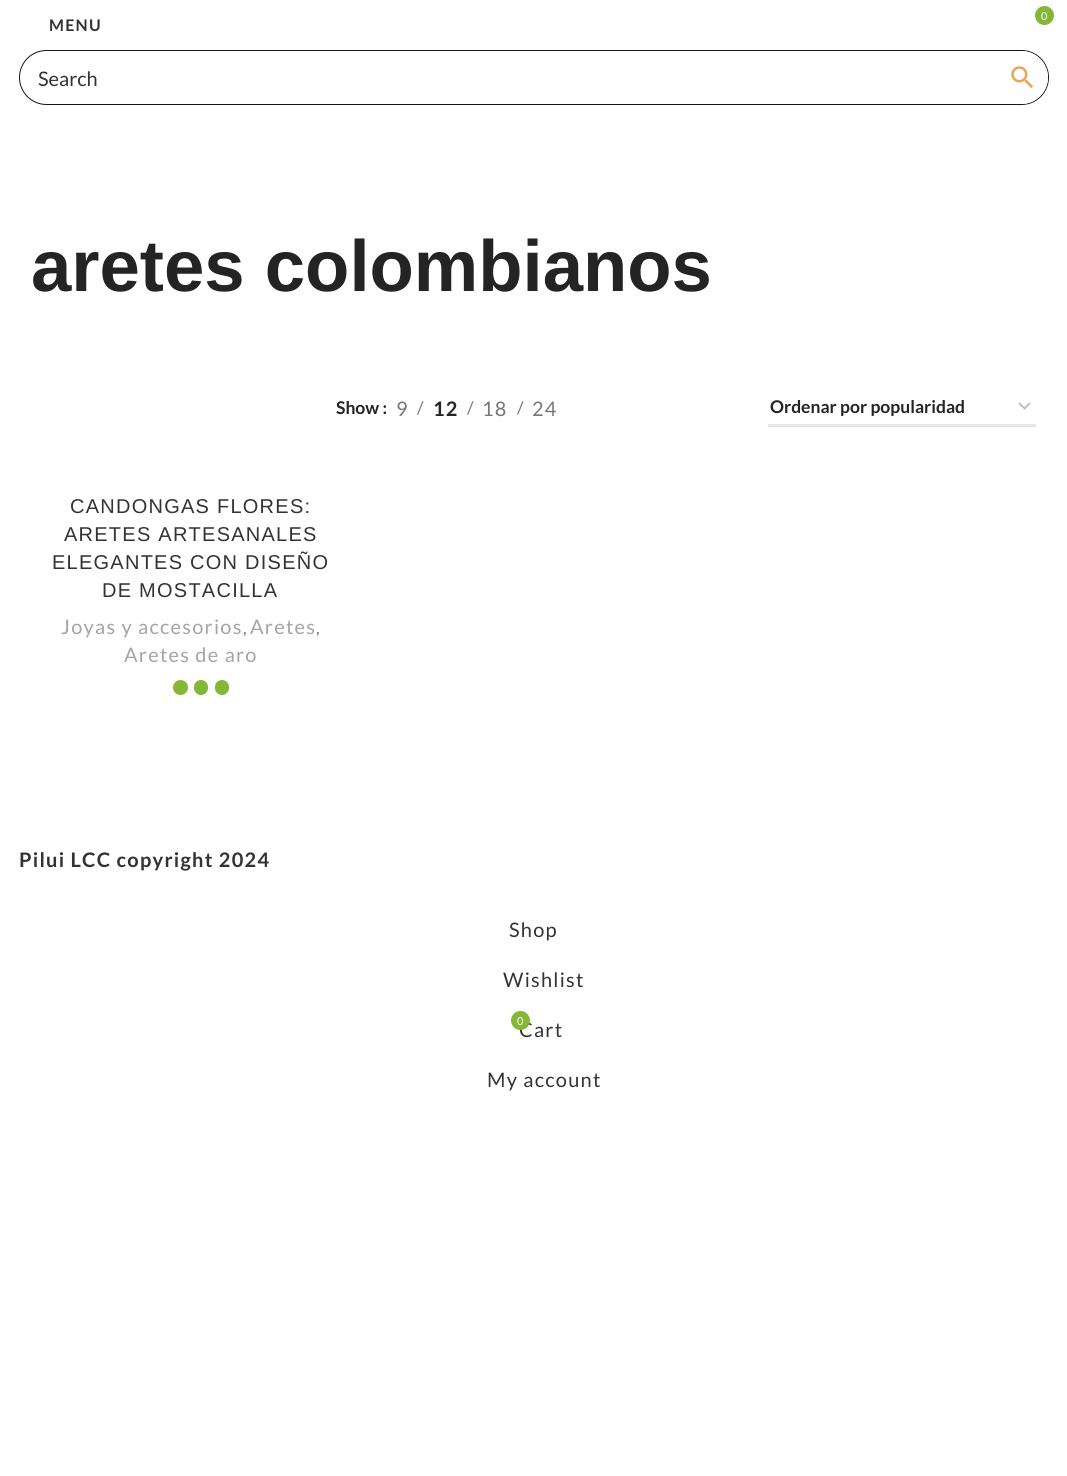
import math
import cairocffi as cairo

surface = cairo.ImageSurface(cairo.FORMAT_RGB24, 1067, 1476)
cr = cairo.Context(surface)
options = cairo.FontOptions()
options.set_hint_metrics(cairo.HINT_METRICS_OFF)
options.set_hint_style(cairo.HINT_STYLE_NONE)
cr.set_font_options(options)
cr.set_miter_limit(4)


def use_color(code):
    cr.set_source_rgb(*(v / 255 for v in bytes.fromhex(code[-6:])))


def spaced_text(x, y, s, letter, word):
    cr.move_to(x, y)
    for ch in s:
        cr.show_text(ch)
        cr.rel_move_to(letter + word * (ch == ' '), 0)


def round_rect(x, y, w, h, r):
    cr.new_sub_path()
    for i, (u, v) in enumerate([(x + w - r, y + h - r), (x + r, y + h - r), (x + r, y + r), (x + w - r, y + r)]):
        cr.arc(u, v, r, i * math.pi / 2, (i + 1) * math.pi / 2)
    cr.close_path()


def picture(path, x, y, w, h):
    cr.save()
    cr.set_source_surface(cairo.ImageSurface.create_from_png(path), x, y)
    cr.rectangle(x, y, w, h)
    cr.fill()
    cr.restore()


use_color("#ffffff")
cr.paint()
use_color("#83b735")
cr.arc(1044.5, 15.5, 9.5, 0, 2 * math.pi)
cr.fill()
cr.select_font_face("Lato")
cr.set_font_size(11)
use_color("#ffffff")
cr.move_to(1041, 20)
cr.show_text("0")
cr.select_font_face("Lato", cairo.FONT_SLANT_NORMAL, cairo.FONT_WEIGHT_BOLD)
cr.set_font_size(16)
use_color("#333333")
spaced_text(49, 31, "MENU", 1.25, 0)
round_rect(19.5, 50.5, 1029, 54, 27)
use_color("#161515")
cr.set_line_width(1)
cr.stroke()
cr.select_font_face("Lato")
cr.set_font_size(20)
use_color("#333333")
cr.move_to(38, 86)
cr.show_text("Search")
use_color("#ffffff")
cr.new_path()
cr.move_to(995, 51)
cr.line_to(1021.5, 51)
cr.curve_to(1036, 51, 1048, 63, 1048, 77.5)
cr.curve_to(1048, 92, 1036, 104, 1021.5, 104)
cr.line_to(995, 104)
cr.close_path()
cr.fill()
picture("img1.png", 1011, 66, 22, 22)
cr.select_font_face("Liberation Sans", cairo.FONT_SLANT_NORMAL, cairo.FONT_WEIGHT_BOLD)
cr.set_font_size(72.5)
use_color("#242424")
cr.move_to(31, 291)
cr.show_text("aretes colombianos")
cr.select_font_face("Lato", cairo.FONT_SLANT_NORMAL, cairo.FONT_WEIGHT_BOLD)
cr.set_font_size(17.5)
cr.move_to(336, 414)
cr.show_text("Show :")
cr.select_font_face("Lato")
cr.set_font_size(20)
use_color("#777777")
spaced_text(396, 416, "9", 1.25, 0)
cr.set_font_size(17.5)
cr.move_to(417, 414)
cr.show_text("/")
cr.select_font_face("Lato", cairo.FONT_SLANT_NORMAL, cairo.FONT_WEIGHT_BOLD)
cr.set_font_size(20)
use_color("#242424")
spaced_text(433, 416, "12", 1.25, 0)
cr.select_font_face("Lato")
cr.set_font_size(17.5)
use_color("#777777")
cr.move_to(467, 414)
cr.show_text("/")
cr.set_font_size(20)
spaced_text(482, 416, "18", 1.25, 0)
cr.set_font_size(17.5)
cr.move_to(517, 414)
cr.show_text("/")
cr.set_font_size(20)
spaced_text(532, 416, "24", 1.25, 0)
cr.new_path()
cr.move_to(1019, 403)
cr.line_to(1024.5, 408.5)
cr.line_to(1030, 403)
use_color("#bbbbbb")
cr.set_line_width(1.8)
cr.stroke()
use_color("#e6e6e6")
cr.rectangle(768, 424, 268, 3)
cr.fill()
cr.select_font_face("Lato", cairo.FONT_SLANT_NORMAL, cairo.FONT_WEIGHT_BOLD)
cr.set_font_size(17.5)
use_color("#242424")
cr.move_to(770, 413)
cr.show_text("Ordenar por popularidad")
cr.select_font_face("Liberation Sans")
cr.set_font_size(20)
use_color("#333333")
spaced_text(70, 513, "CANDONGAS FLORES:", 1.25, 0)
spaced_text(64, 541, "ARETES ARTESANALES", 1.25, 0)
spaced_text(52, 569, "ELEGANTES CON DISEÑO", 1.25, 0)
spaced_text(102, 597, "DE MOSTACILLA", 1.25, 0)
cr.select_font_face("Lato")
use_color("#a5a5a5")
spaced_text(61, 634, "Joyas y accesorios", 1.25, 0)
cr.set_font_size(17)
use_color("#777777")
cr.move_to(243, 634)
cr.show_text(",")
cr.set_font_size(20)
use_color("#a5a5a5")
spaced_text(250, 634, "Aretes", 1.25, 0)
cr.set_font_size(17)
use_color("#777777")
cr.move_to(316, 634)
cr.show_text(",")
cr.set_font_size(20)
use_color("#a5a5a5")
spaced_text(124, 662, "Aretes de aro", 1.25, 0)
use_color("#83b735")
round_rect(194, 680, 14, 15, 7)
cr.fill()
cr.arc(180.5, 687.5, 7.5, 0, 2 * math.pi)
cr.fill()
round_rect(215, 680, 14, 15, 7)
cr.fill()
cr.select_font_face("Lato", cairo.FONT_SLANT_NORMAL, cairo.FONT_WEIGHT_BOLD)
use_color("#333333")
spaced_text(19, 867, "Pilui LCC copyright 2024", 1.25, 0)
cr.select_font_face("Lato")
spaced_text(509, 937, "Shop", 1.25, 0)
spaced_text(503, 987, "Wishlist", 1.25, 0)
spaced_text(519, 1037, "Cart", 1.25, 0)
use_color("#83b735")
cr.new_path()
cr.arc(520.5, 1020.5, 9.5, 0, 2 * math.pi)
cr.fill()
cr.set_font_size(11)
use_color("#ffffff")
cr.move_to(517, 1025)
cr.show_text("0")
cr.set_font_size(20)
use_color("#333333")
spaced_text(487, 1087, "My account", 1.25, 0)
surface.write_to_png("result.png")
